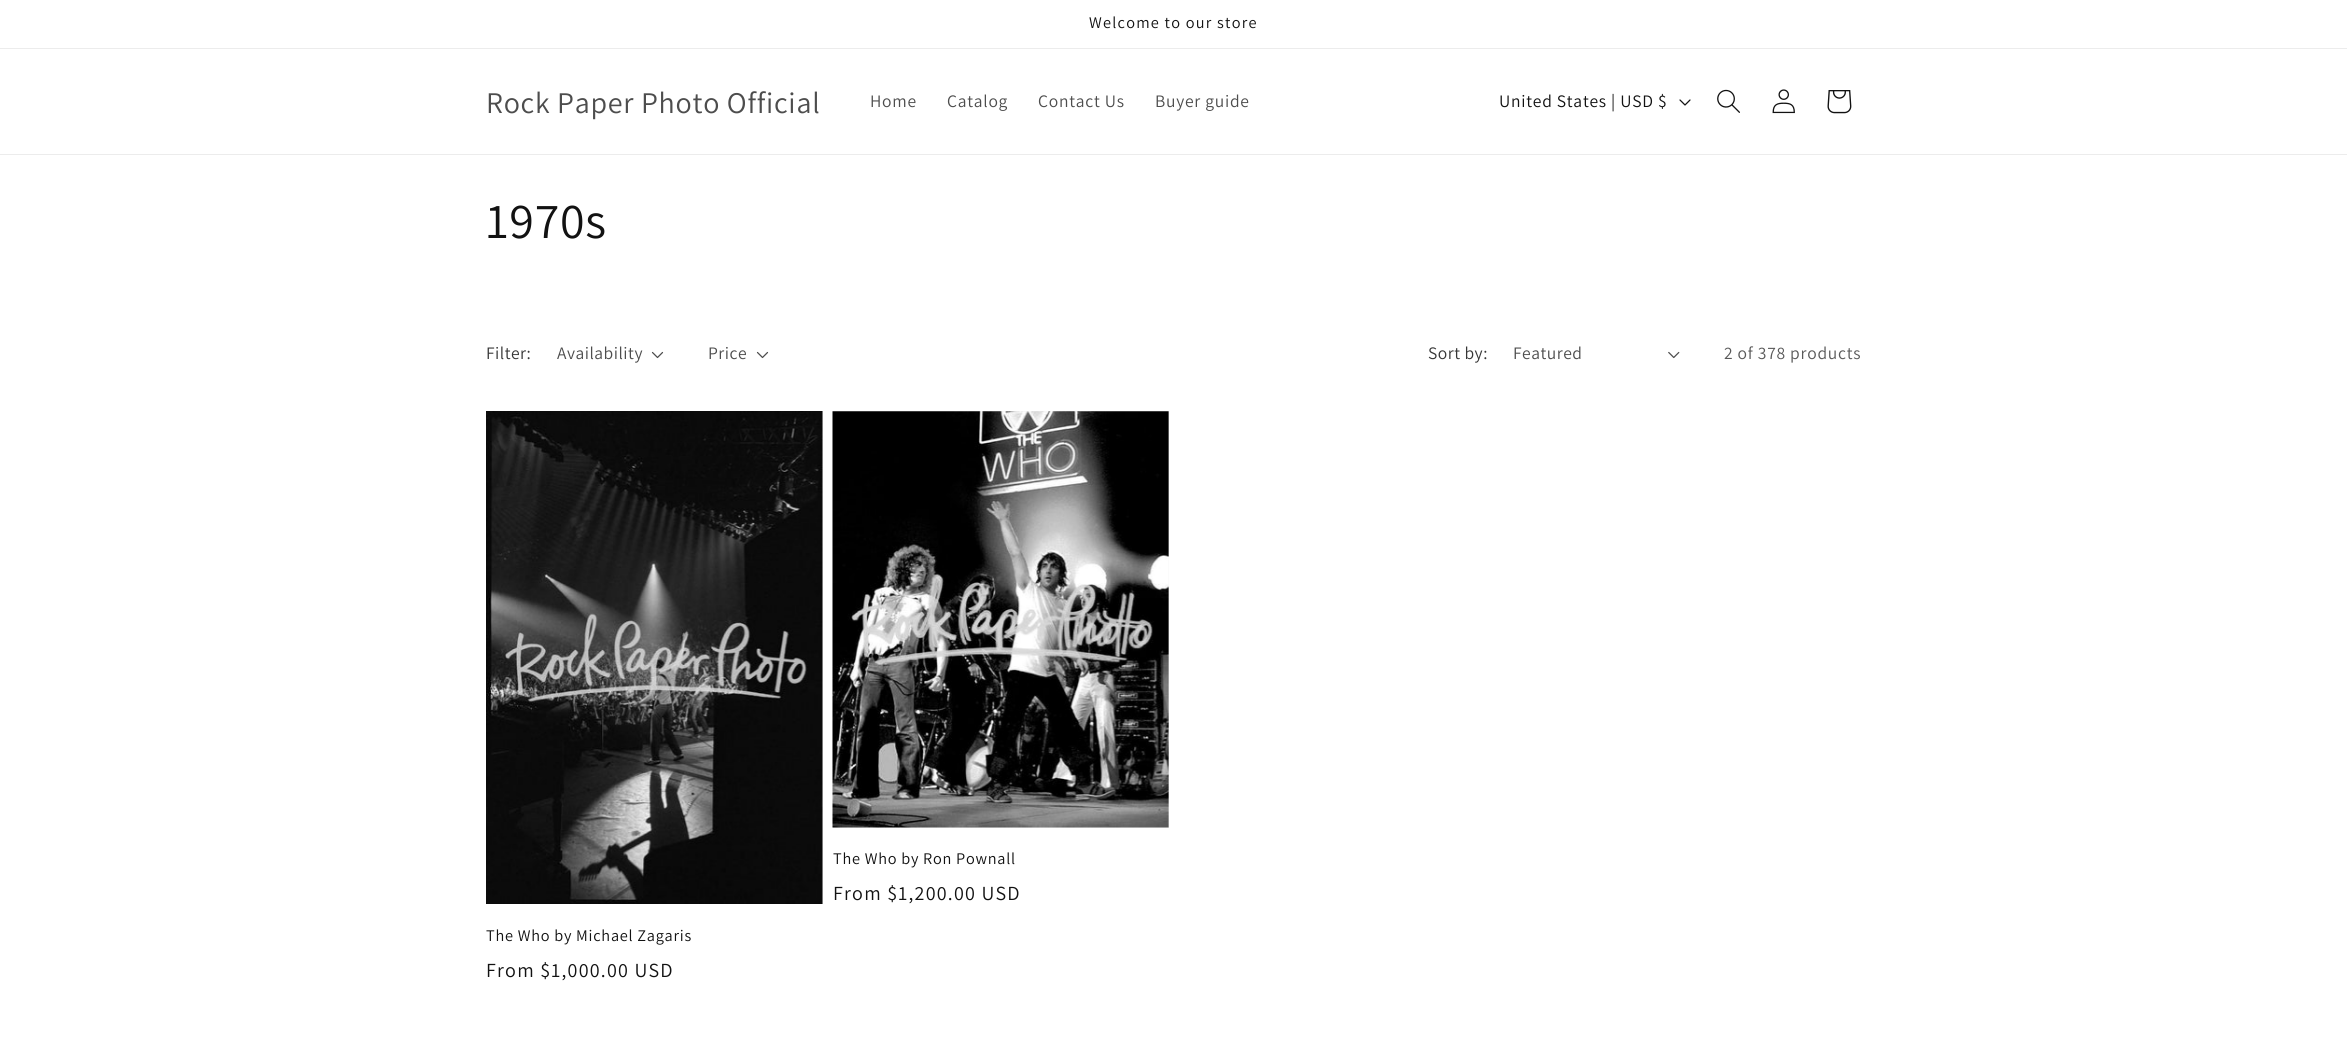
import math
import cairocffi as cairo

surface = cairo.ImageSurface(cairo.FORMAT_RGB24, 2347, 1039)
cr = cairo.Context(surface)
options = cairo.FontOptions()
options.set_hint_metrics(cairo.HINT_METRICS_OFF)
options.set_hint_style(cairo.HINT_STYLE_NONE)
cr.set_font_options(options)
cr.set_miter_limit(4)


def use_color(code):
    cr.set_source_rgb(*(v / 255 for v in bytes.fromhex(code[-6:])))


def spaced_text(x, y, s, letter, word):
    cr.move_to(x, y)
    for ch in s:
        cr.show_text(ch)
        cr.rel_move_to(letter + word * (ch == ' '), 0)


def picture(path, x, y, w, h):
    cr.save()
    cr.set_source_surface(cairo.ImageSurface.create_from_png(path), x, y)
    cr.rectangle(x, y, w, h)
    cr.fill()
    cr.restore()


use_color("#ffffff")
cr.paint()
use_color("#ececec")
cr.rectangle(0, 48, 2347, 1)
cr.fill()
cr.select_font_face("Assistant")
cr.set_font_size(16.25)
use_color("#121212")
spaced_text(1089, 28, "Welcome to our store", 1.25, 0)
use_color("#ececec")
cr.rectangle(0, 154, 2347, 1)
cr.fill()
cr.set_font_size(30)
use_color("#4d4d4d")
spaced_text(486, 113, "Rock Paper Photo Official", 0.75, 0)
cr.set_font_size(17.5)
spaced_text(870, 107, "Home", 0.75, 0)
spaced_text(947, 107, "Catalog", 0.75, 0)
spaced_text(1038, 107, "Contact Us", 0.75, 0)
spaced_text(1155, 107, "Buyer guide", 0.75, 0)
use_color("#121212")
spaced_text(1499, 107, "United States | USD $", 0.75, 0)
picture("img1.png", 1679, 99, 12, 7)
picture("img2.png", 1717, 89, 23, 24)
picture("img3.png", 1772, 89, 23, 25)
picture("img4.png", 1827, 90, 25, 24)
cr.set_font_size(50)
spaced_text(486, 238, "1970s", 0.75, 0)
cr.set_font_size(17.5)
use_color("#363636")
spaced_text(486, 359, "Filter:", 0.5, 0)
use_color("#4d4d4d")
spaced_text(557, 359, "Availability", 0.5, 0)
picture("img5.png", 651, 351, 13, 8)
spaced_text(708, 359, "Price", 0.5, 0)
picture("img5.png", 756, 351, 13, 8)
use_color("#363636")
spaced_text(1428, 359, "Sort by:", 0.5, 0)
use_color("#4d4d4d")
spaced_text(1513, 359, "Featured", 0.5, 0)
picture("img6.png", 1668, 351, 12, 8)
use_color("#595959")
spaced_text(1724, 359, "2 of 378 products", 0.75, 0)
use_color("#f3f3f3")
cr.rectangle(833, 411, 336, 417)
cr.fill()
picture("img7.png", 832, 411, 337, 417)
cr.set_font_size(16.25)
use_color("#121212")
spaced_text(833, 864, "The Who by Ron Pownall", 0.75, 0)
cr.set_font_size(20)
spaced_text(833, 900, "From $1,200.00 USD", 1.25, 0)
use_color("#f3f3f3")
cr.rectangle(822, 411, 1, 493)
cr.fill()
picture("img8.png", 486, 411, 337, 493)
cr.set_font_size(16.25)
use_color("#121212")
spaced_text(486, 941, "The Who by Michael Zagaris", 0.75, 0)
cr.set_font_size(20)
spaced_text(486, 977, "From $1,000.00 USD", 1.25, 0)
surface.write_to_png("result.png")
